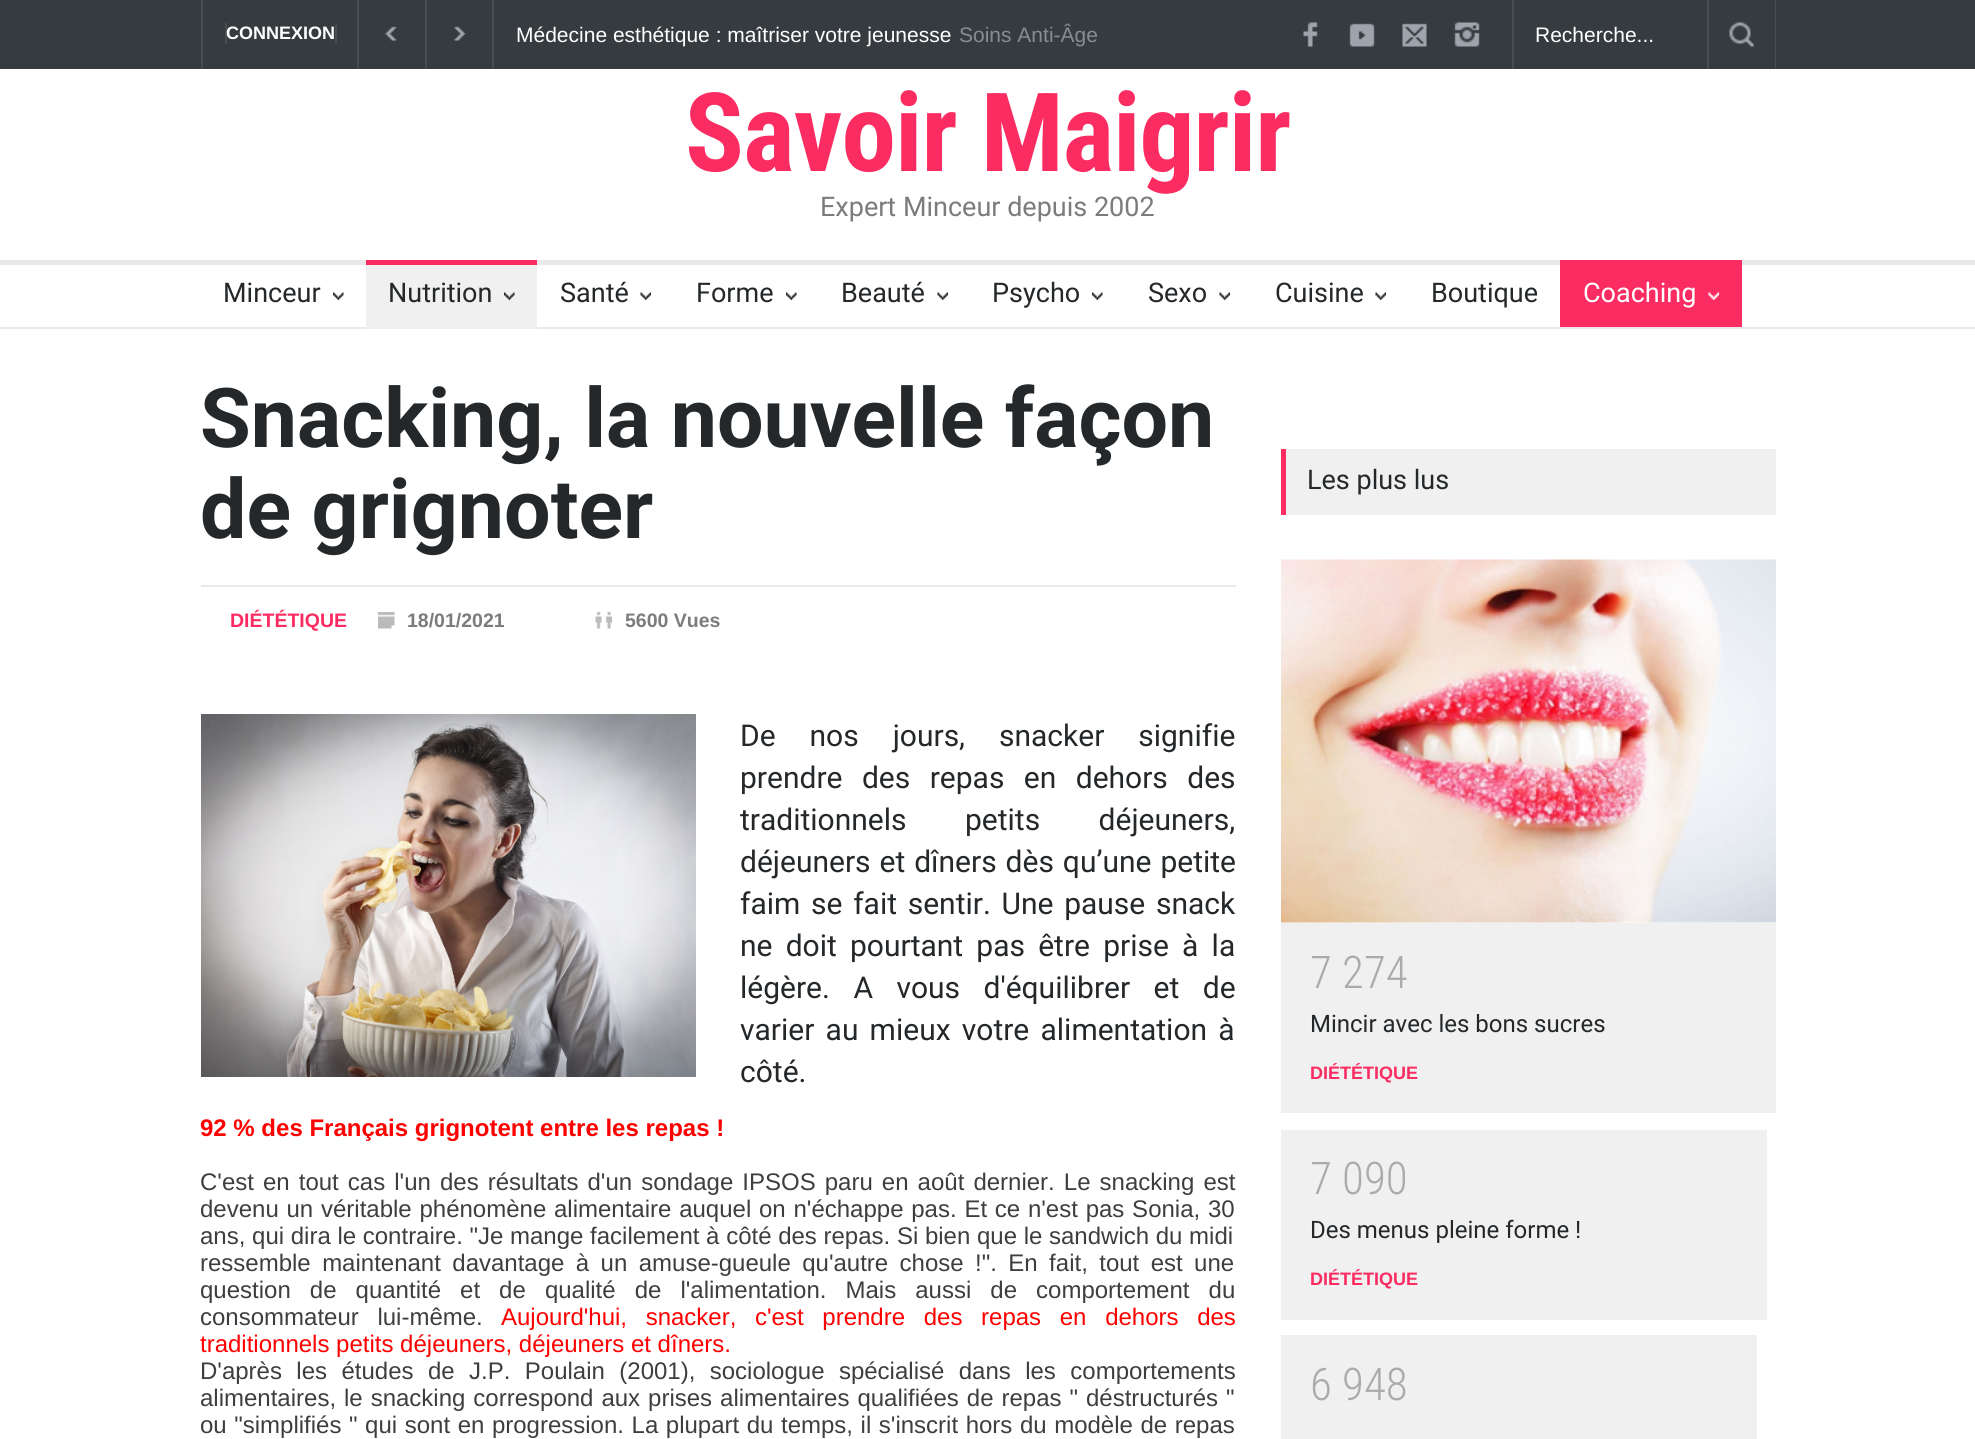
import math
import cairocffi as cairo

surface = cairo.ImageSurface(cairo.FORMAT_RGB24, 1975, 1439)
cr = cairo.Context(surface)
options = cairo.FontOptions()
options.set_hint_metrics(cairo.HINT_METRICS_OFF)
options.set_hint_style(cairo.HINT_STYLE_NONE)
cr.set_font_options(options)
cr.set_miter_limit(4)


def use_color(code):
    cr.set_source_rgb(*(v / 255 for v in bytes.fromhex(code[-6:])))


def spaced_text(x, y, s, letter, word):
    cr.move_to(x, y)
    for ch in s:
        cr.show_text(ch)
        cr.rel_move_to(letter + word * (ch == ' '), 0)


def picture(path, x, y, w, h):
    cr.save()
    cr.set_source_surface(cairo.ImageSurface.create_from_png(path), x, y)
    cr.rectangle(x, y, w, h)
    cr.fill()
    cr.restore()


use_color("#ffffff")
cr.paint()
use_color("#363b40")
cr.rectangle(0, 0, 1975, 69)
cr.fill()
use_color("#464d53")
cr.rectangle(357, 0, 2, 69)
cr.fill()
cr.rectangle(201, 0, 2, 69)
cr.fill()
cr.rectangle(225, 23, 2, 21)
cr.fill()
cr.select_font_face("Liberation Sans", cairo.FONT_SLANT_NORMAL, cairo.FONT_WEIGHT_BOLD)
cr.set_font_size(18)
use_color("#ffffff")
cr.move_to(226, 39)
cr.show_text("CONNEXION")
use_color("#464d53")
cr.rectangle(335, 23, 2, 21)
cr.fill()
cr.rectangle(425, 0, 2, 69)
cr.fill()
picture("img1.png", 385, 26, 12, 15)
cr.rectangle(492, 0, 2, 69)
cr.fill()
picture("img2.png", 454, 26, 12, 15)
cr.select_font_face("Liberation Sans")
cr.set_font_size(21)
use_color("#ffffff")
cr.move_to(516, 42)
cr.show_text("Médecine esthétique : maîtriser votre jeunesse")
use_color("#858d94")
cr.move_to(959, 42)
cr.show_text("Soins Anti-Âge")
picture("img3.png", 1303, 22, 15, 25)
picture("img4.png", 1349, 23, 26, 24)
picture("img5.png", 1402, 23, 25, 24)
picture("img6.png", 1454, 22, 26, 25)
use_color("#464d53")
cr.rectangle(1775, 0, 1, 69)
cr.fill()
cr.rectangle(1512, 0, 2, 69)
cr.fill()
cr.rectangle(1707, 0, 2, 69)
cr.fill()
use_color("#ffffff")
cr.move_to(1535, 42)
cr.show_text("Recherche...")
picture("img7.png", 1729, 22, 25, 25)
cr.select_font_face("Roboto Condensed", cairo.FONT_SLANT_NORMAL, cairo.FONT_WEIGHT_BOLD)
cr.set_font_size(109.5)
use_color("#fb2c61")
spaced_text(685, 171, "Savoir Maigrir", -1.1, 0)
cr.select_font_face("Roboto")
cr.set_font_size(27)
use_color("#7c7c7c")
cr.move_to(820, 216)
cr.show_text("Expert Minceur depuis 2002")
use_color("#e9e9e9")
cr.rectangle(0, 260, 1975, 5)
cr.fill()
cr.rectangle(0, 327, 1975, 2)
cr.fill()
picture("img8.png", 333, 292, 11, 8)
use_color("#25282a")
cr.move_to(223, 302)
cr.show_text("Minceur")
use_color("#f0f0f0")
cr.rectangle(366, 265, 171, 64)
cr.fill()
use_color("#fb2c61")
cr.rectangle(366, 260, 171, 5)
cr.fill()
picture("img9.png", 504, 292, 11, 8)
use_color("#25282a")
cr.move_to(388, 302)
cr.show_text("Nutrition")
picture("img10.png", 640, 292, 11, 8)
cr.move_to(560, 302)
cr.show_text("Santé")
picture("img11.png", 786, 292, 11, 8)
cr.move_to(696, 302)
cr.show_text("Forme")
picture("img12.png", 937, 292, 11, 8)
cr.move_to(841, 302)
cr.show_text("Beauté")
picture("img8.png", 1092, 292, 11, 8)
cr.move_to(992, 302)
cr.show_text("Psycho")
picture("img12.png", 1219, 292, 11, 8)
cr.move_to(1148, 302)
cr.show_text("Sexo")
picture("img10.png", 1375, 292, 11, 8)
cr.move_to(1275, 302)
cr.show_text("Cuisine")
cr.move_to(1431, 302)
cr.show_text("Boutique")
use_color("#fb2c61")
cr.rectangle(1560, 260, 182, 67)
cr.fill()
picture("img13.png", 1708, 292, 11, 8)
use_color("#ffffff")
cr.move_to(1583, 302)
cr.show_text("Coaching")
cr.select_font_face("Roboto", cairo.FONT_SLANT_NORMAL, cairo.FONT_WEIGHT_BOLD)
cr.set_font_size(82.5)
use_color("#25282a")
cr.move_to(200, 447)
cr.show_text("Snacking, la nouvelle façon")
cr.move_to(200, 538)
cr.show_text("de grignoter")
use_color("#e9e9e9")
cr.rectangle(201, 585, 1035, 2)
cr.fill()
cr.select_font_face("Liberation Sans", cairo.FONT_SLANT_NORMAL, cairo.FONT_WEIGHT_BOLD)
cr.set_font_size(19.5)
use_color("#fb2c61")
cr.move_to(230, 627)
cr.show_text("DIÉTÉTIQUE")
picture("img14.png", 378, 612, 17, 17)
use_color("#7c7c7c")
cr.move_to(407, 627)
cr.show_text("18/01/2021")
picture("img15.png", 595, 612, 17, 17)
cr.move_to(625, 627)
cr.show_text("5600 Vues")
picture("img16.png", 201, 714, 495, 363)
cr.select_font_face("Roboto")
cr.set_font_size(30)
use_color("#25282a")
spaced_text(740, 746, "De nos jours, snacker signifie", 0, 26.5)
spaced_text(740, 788, "prendre des repas en dehors des", 0, 12)
spaced_text(740, 830, "traditionnels petits déjeuners,", 0, 51)
spaced_text(740, 872, "déjeuners et dîners dès qu’une petite", 0, 1.5)
spaced_text(740, 914, "faim se fait sentir. Une pause snack", 0, 3.25)
spaced_text(740, 956, "ne doit pourtant pas être prise à la", 0, 5.75)
spaced_text(740, 998, "légère. A vous d'équilibrer et de", 0, 16)
spaced_text(740, 1040, "varier au mieux votre alimentation à", 0, 3.75)
cr.move_to(740, 1082)
cr.show_text("côté.")
cr.select_font_face("Liberation Sans", cairo.FONT_SLANT_NORMAL, cairo.FONT_WEIGHT_BOLD)
cr.set_font_size(24)
use_color("#ff0000")
cr.move_to(200, 1136)
cr.show_text("92 % des Français grignotent entre les repas !")
cr.select_font_face("Liberation Sans")
use_color("#3e3e3e")
spaced_text(200, 1190, "C'est en tout cas l'un des résultats d'un sondage IPSOS paru en août dernier. Le snacking est", 0, 2.4)
spaced_text(200, 1217, "devenu un véritable phénomène alimentaire auquel on n'échappe pas. Et ce n'est pas Sonia, 30", 0, 1.1)
cr.move_to(200, 1244)
cr.show_text("ans, qui dira le contraire. \"Je mange facilement à côté des repas. Si bien que le sandwich du midi")
spaced_text(200, 1271, "ressemble maintenant davantage à un amuse-gueule qu'autre chose !\". En fait, tout est une", 0, 4.75)
spaced_text(200, 1298, "question de quantité et de qualité de l'alimentation. Mais aussi de comportement du", 0, 12.4)
spaced_text(200, 1325, "consommateur lui-même.", 0, 12)
use_color("#ff0000")
spaced_text(501, 1325, "Aujourd'hui, snacker, c'est prendre des repas en dehors des", 0, 12)
cr.move_to(200, 1352)
cr.show_text("traditionnels petits déjeuners, déjeuners et dîners.")
use_color("#3e3e3e")
spaced_text(200, 1379, "D'après les études de J.P. Poulain (2001), sociologue spécialisé dans les comportements", 0, 7.75)
spaced_text(200, 1406, "alimentaires, le snacking correspond aux prises alimentaires qualifiées de repas \" déstructurés \"", 0, 1.3)
spaced_text(200, 1433, "ou \"simplifiés \" qui sont en progression. La plupart du temps, il s'inscrit hors du modèle de repas", 0, 0.9)
use_color("#f0f0f0")
cr.rectangle(1286, 449, 490, 66)
cr.fill()
use_color("#fb2c61")
cr.rectangle(1281, 449, 5, 66)
cr.fill()
cr.select_font_face("Roboto")
cr.set_font_size(27)
use_color("#25282a")
cr.move_to(1307, 489)
cr.show_text("Les plus lus")
picture("img17.png", 1281, 559, 495, 364)
use_color("#f0f0f0")
cr.rectangle(1281, 923, 495, 190)
cr.fill()
cr.select_font_face("Roboto Condensed Light")
cr.set_font_size(45)
use_color("#ababab")
cr.move_to(1310, 988)
cr.show_text("7 274")
cr.select_font_face("Roboto")
cr.set_font_size(24)
use_color("#25282a")
cr.move_to(1310, 1032)
cr.show_text("Mincir avec les bons sucres")
cr.select_font_face("Liberation Sans", cairo.FONT_SLANT_NORMAL, cairo.FONT_WEIGHT_BOLD)
cr.set_font_size(18)
use_color("#fb2c61")
cr.move_to(1310, 1079)
cr.show_text("DIÉTÉTIQUE")
use_color("#f0f0f0")
cr.rectangle(1281, 1130, 486, 190)
cr.fill()
cr.select_font_face("Roboto Condensed Light")
cr.set_font_size(45)
use_color("#ababab")
cr.move_to(1310, 1194)
cr.show_text("7 090")
cr.select_font_face("Roboto")
cr.set_font_size(24)
use_color("#25282a")
cr.move_to(1310, 1238)
cr.show_text("Des menus pleine forme !")
cr.select_font_face("Liberation Sans", cairo.FONT_SLANT_NORMAL, cairo.FONT_WEIGHT_BOLD)
cr.set_font_size(18)
use_color("#fb2c61")
cr.move_to(1310, 1285)
cr.show_text("DIÉTÉTIQUE")
use_color("#f0f0f0")
cr.rectangle(1281, 1335, 476, 104)
cr.fill()
cr.select_font_face("Roboto Condensed Light")
cr.set_font_size(45)
use_color("#ababab")
cr.move_to(1310, 1400)
cr.show_text("6 948")
surface.write_to_png("result.png")
